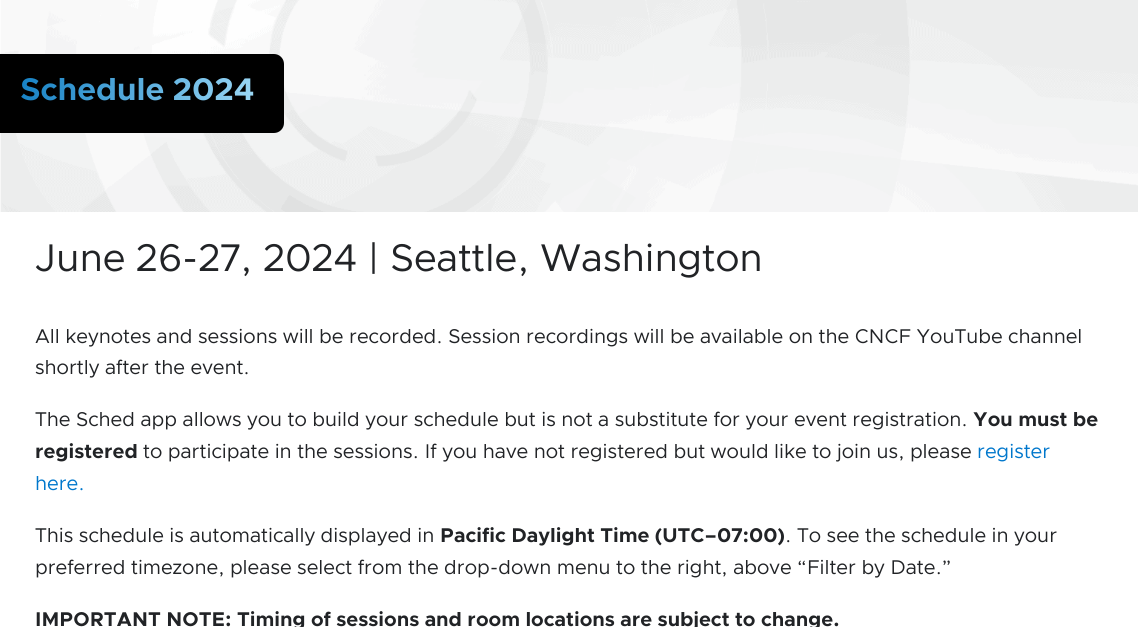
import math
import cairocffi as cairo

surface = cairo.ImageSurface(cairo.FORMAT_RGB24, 1138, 627)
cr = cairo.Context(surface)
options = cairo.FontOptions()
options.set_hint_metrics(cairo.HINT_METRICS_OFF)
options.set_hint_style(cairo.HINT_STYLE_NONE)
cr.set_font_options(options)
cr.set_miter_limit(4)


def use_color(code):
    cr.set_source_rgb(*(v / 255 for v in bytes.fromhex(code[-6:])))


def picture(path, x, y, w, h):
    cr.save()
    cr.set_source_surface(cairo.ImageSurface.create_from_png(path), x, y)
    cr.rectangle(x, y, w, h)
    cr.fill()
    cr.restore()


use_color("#ffffff")
cr.paint()
picture("img1.png", 0, 0, 1138, 212)
use_color("#000000")
cr.new_path()
cr.move_to(0, 54)
cr.line_to(274, 54)
cr.curve_to(279.5, 54, 284, 58.5, 284, 64)
cr.line_to(284, 123)
cr.curve_to(284, 128.5, 279.5, 133, 274, 133)
cr.line_to(0, 133)
cr.close_path()
cr.fill()
cr.select_font_face("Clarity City", cairo.FONT_SLANT_NORMAL, cairo.FONT_WEIGHT_BOLD)
cr.set_font_size(31.5)
gradient = cairo.LinearGradient(20, 72, 253, 110)
gradient.add_color_stop_rgba(0, 0.086, 0.506, 0.769, 1)
gradient.add_color_stop_rgba(1, 0.604, 0.843, 0.961, 1)
cr.set_source(gradient)
cr.move_to(20, 100)
cr.show_text("Schedule 2024")
cr.select_font_face("Clarity City")
cr.set_font_size(38.75)
use_color("#212326")
cr.move_to(35, 271)
cr.show_text("June 26-27, 2024 | Seattle, Washington")
cr.set_font_size(20)
cr.move_to(35, 343)
cr.show_text("All keynotes and sessions will be recorded. Session recordings will be available on the CNCF YouTube channel")
cr.move_to(35, 374)
cr.show_text("shortly after the event.")
cr.move_to(35, 426)
cr.show_text("The Sched app allows you to build your schedule but is not a substitute for your event registration.")
cr.select_font_face("Clarity City", cairo.FONT_SLANT_NORMAL, cairo.FONT_WEIGHT_BOLD)
cr.move_to(973, 426)
cr.show_text("You must be")
cr.move_to(35, 458)
cr.show_text("registered")
cr.select_font_face("Clarity City")
cr.move_to(143, 458)
cr.show_text("to participate in the sessions. If you have not registered but would like to join us, please")
use_color("#0077cc")
cr.move_to(977, 458)
cr.show_text("register")
cr.move_to(35, 490)
cr.show_text("here.")
use_color("#212326")
cr.move_to(35, 542)
cr.show_text("This schedule is automatically displayed in")
cr.select_font_face("Clarity City", cairo.FONT_SLANT_NORMAL, cairo.FONT_WEIGHT_BOLD)
cr.move_to(440, 542)
cr.show_text("Pacific Daylight Time (UTC–07:00)")
cr.select_font_face("Clarity City")
cr.move_to(785, 542)
cr.show_text(". To see the schedule in your")
cr.move_to(35, 574)
cr.show_text("preferred timezone, please select from the drop-down menu to the right, above “Filter by Date.”")
cr.select_font_face("Clarity City", cairo.FONT_SLANT_NORMAL, cairo.FONT_WEIGHT_BOLD)
cr.move_to(35, 626)
cr.show_text("IMPORTANT NOTE: Timing of sessions and room locations are subject to change.")
surface.write_to_png("result.png")
